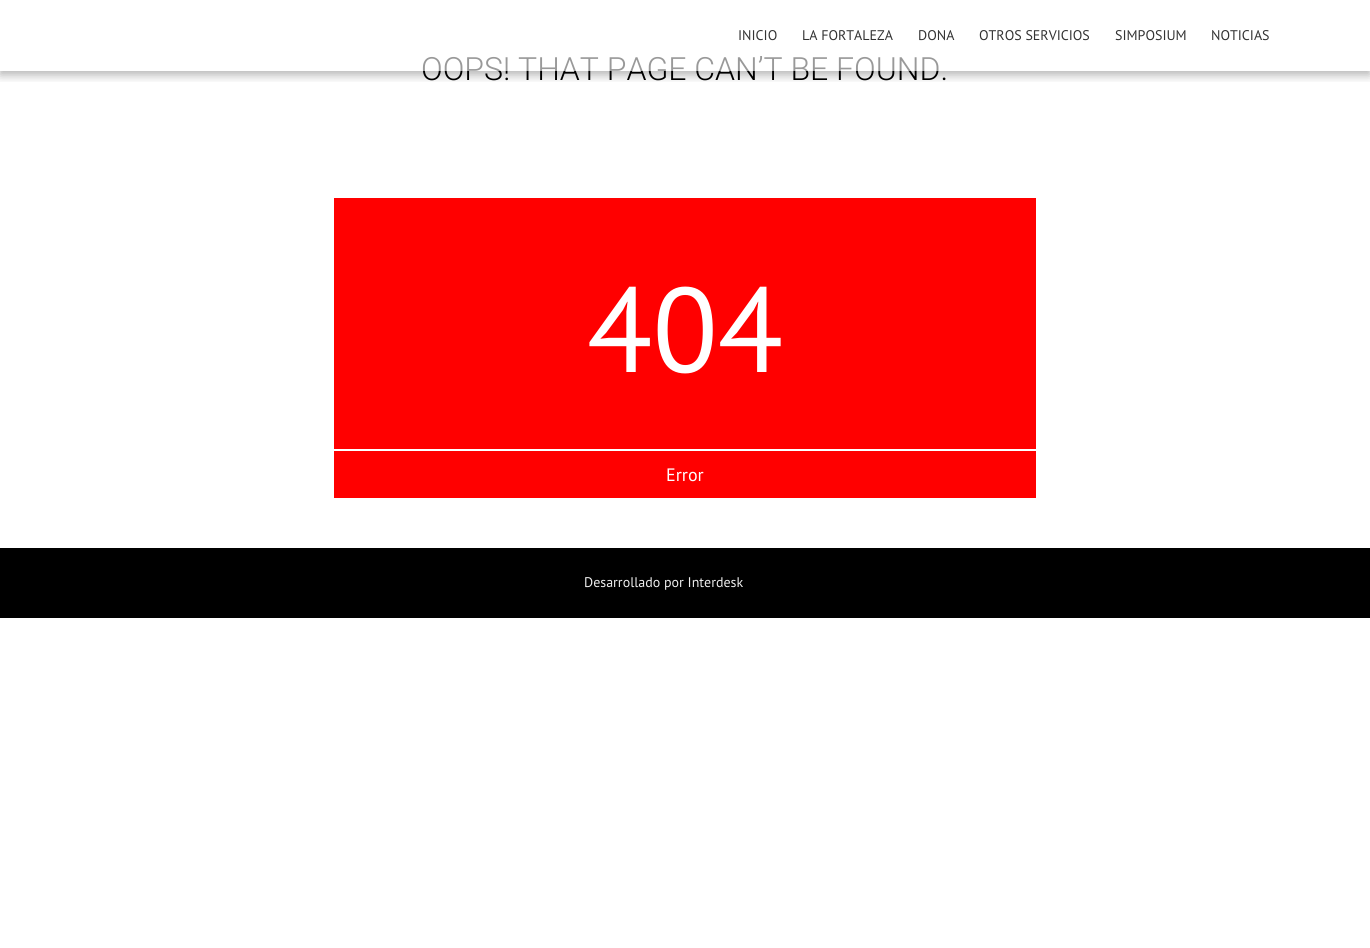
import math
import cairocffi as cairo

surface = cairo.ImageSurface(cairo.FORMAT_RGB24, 1370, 948)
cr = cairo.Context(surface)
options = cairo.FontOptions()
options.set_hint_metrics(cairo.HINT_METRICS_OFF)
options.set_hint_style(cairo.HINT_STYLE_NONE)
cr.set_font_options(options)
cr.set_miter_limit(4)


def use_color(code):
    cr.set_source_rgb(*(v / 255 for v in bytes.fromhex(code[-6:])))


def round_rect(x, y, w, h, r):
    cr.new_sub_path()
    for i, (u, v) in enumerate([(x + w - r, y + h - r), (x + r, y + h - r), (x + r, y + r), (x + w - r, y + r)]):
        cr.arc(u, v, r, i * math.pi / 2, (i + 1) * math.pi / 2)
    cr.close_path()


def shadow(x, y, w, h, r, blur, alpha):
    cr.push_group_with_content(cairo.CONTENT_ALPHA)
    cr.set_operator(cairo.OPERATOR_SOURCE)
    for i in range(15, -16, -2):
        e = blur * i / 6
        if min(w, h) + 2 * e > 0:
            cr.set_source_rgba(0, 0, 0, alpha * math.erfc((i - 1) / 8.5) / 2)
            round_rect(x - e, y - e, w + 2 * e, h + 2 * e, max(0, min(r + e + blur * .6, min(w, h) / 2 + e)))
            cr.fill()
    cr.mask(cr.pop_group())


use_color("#ffffff")
cr.paint()
cr.save()
cr.rectangle(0, 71, 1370, 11)
cr.clip()
use_color("#000000")
shadow(0, 4, 1370, 71, 0, 5, 0.3)
cr.restore()
cr.select_font_face("Roboto Light")
cr.set_font_size(32)
use_color("#000000")
cr.move_to(421, 80)
cr.show_text("OOPS! THAT PAGE CAN’T BE FOUND.")
cr.set_source_rgba(1, 1, 1, 0.6)
cr.rectangle(423, 56, 516, 15)
cr.fill()
cr.select_font_face("PT Sans")
cr.set_font_size(14)
use_color("#333333")
cr.move_to(738, 40)
cr.show_text("INICIO")
cr.move_to(802, 40)
cr.show_text("LA FORTALEZA")
cr.move_to(918, 40)
cr.show_text("DONA")
cr.move_to(979, 40)
cr.show_text("OTROS SERVICIOS")
cr.move_to(1115, 40)
cr.show_text("SIMPOSIUM")
cr.move_to(1211, 40)
cr.show_text("NOTICIAS")
use_color("#ff0000")
cr.rectangle(334, 198, 702, 300)
cr.fill()
cr.set_font_size(120)
use_color("#ffffff")
cr.move_to(587, 372)
cr.show_text("404")
cr.rectangle(334, 449, 702, 2)
cr.fill()
cr.set_font_size(18)
cr.move_to(666, 481)
cr.show_text("Error")
use_color("#000000")
cr.rectangle(0, 548, 1370, 70)
cr.fill()
cr.set_font_size(14)
use_color("#eeeeee")
cr.move_to(584, 587)
cr.show_text("Desarrollado por Interdesk")
surface.write_to_png("result.png")
